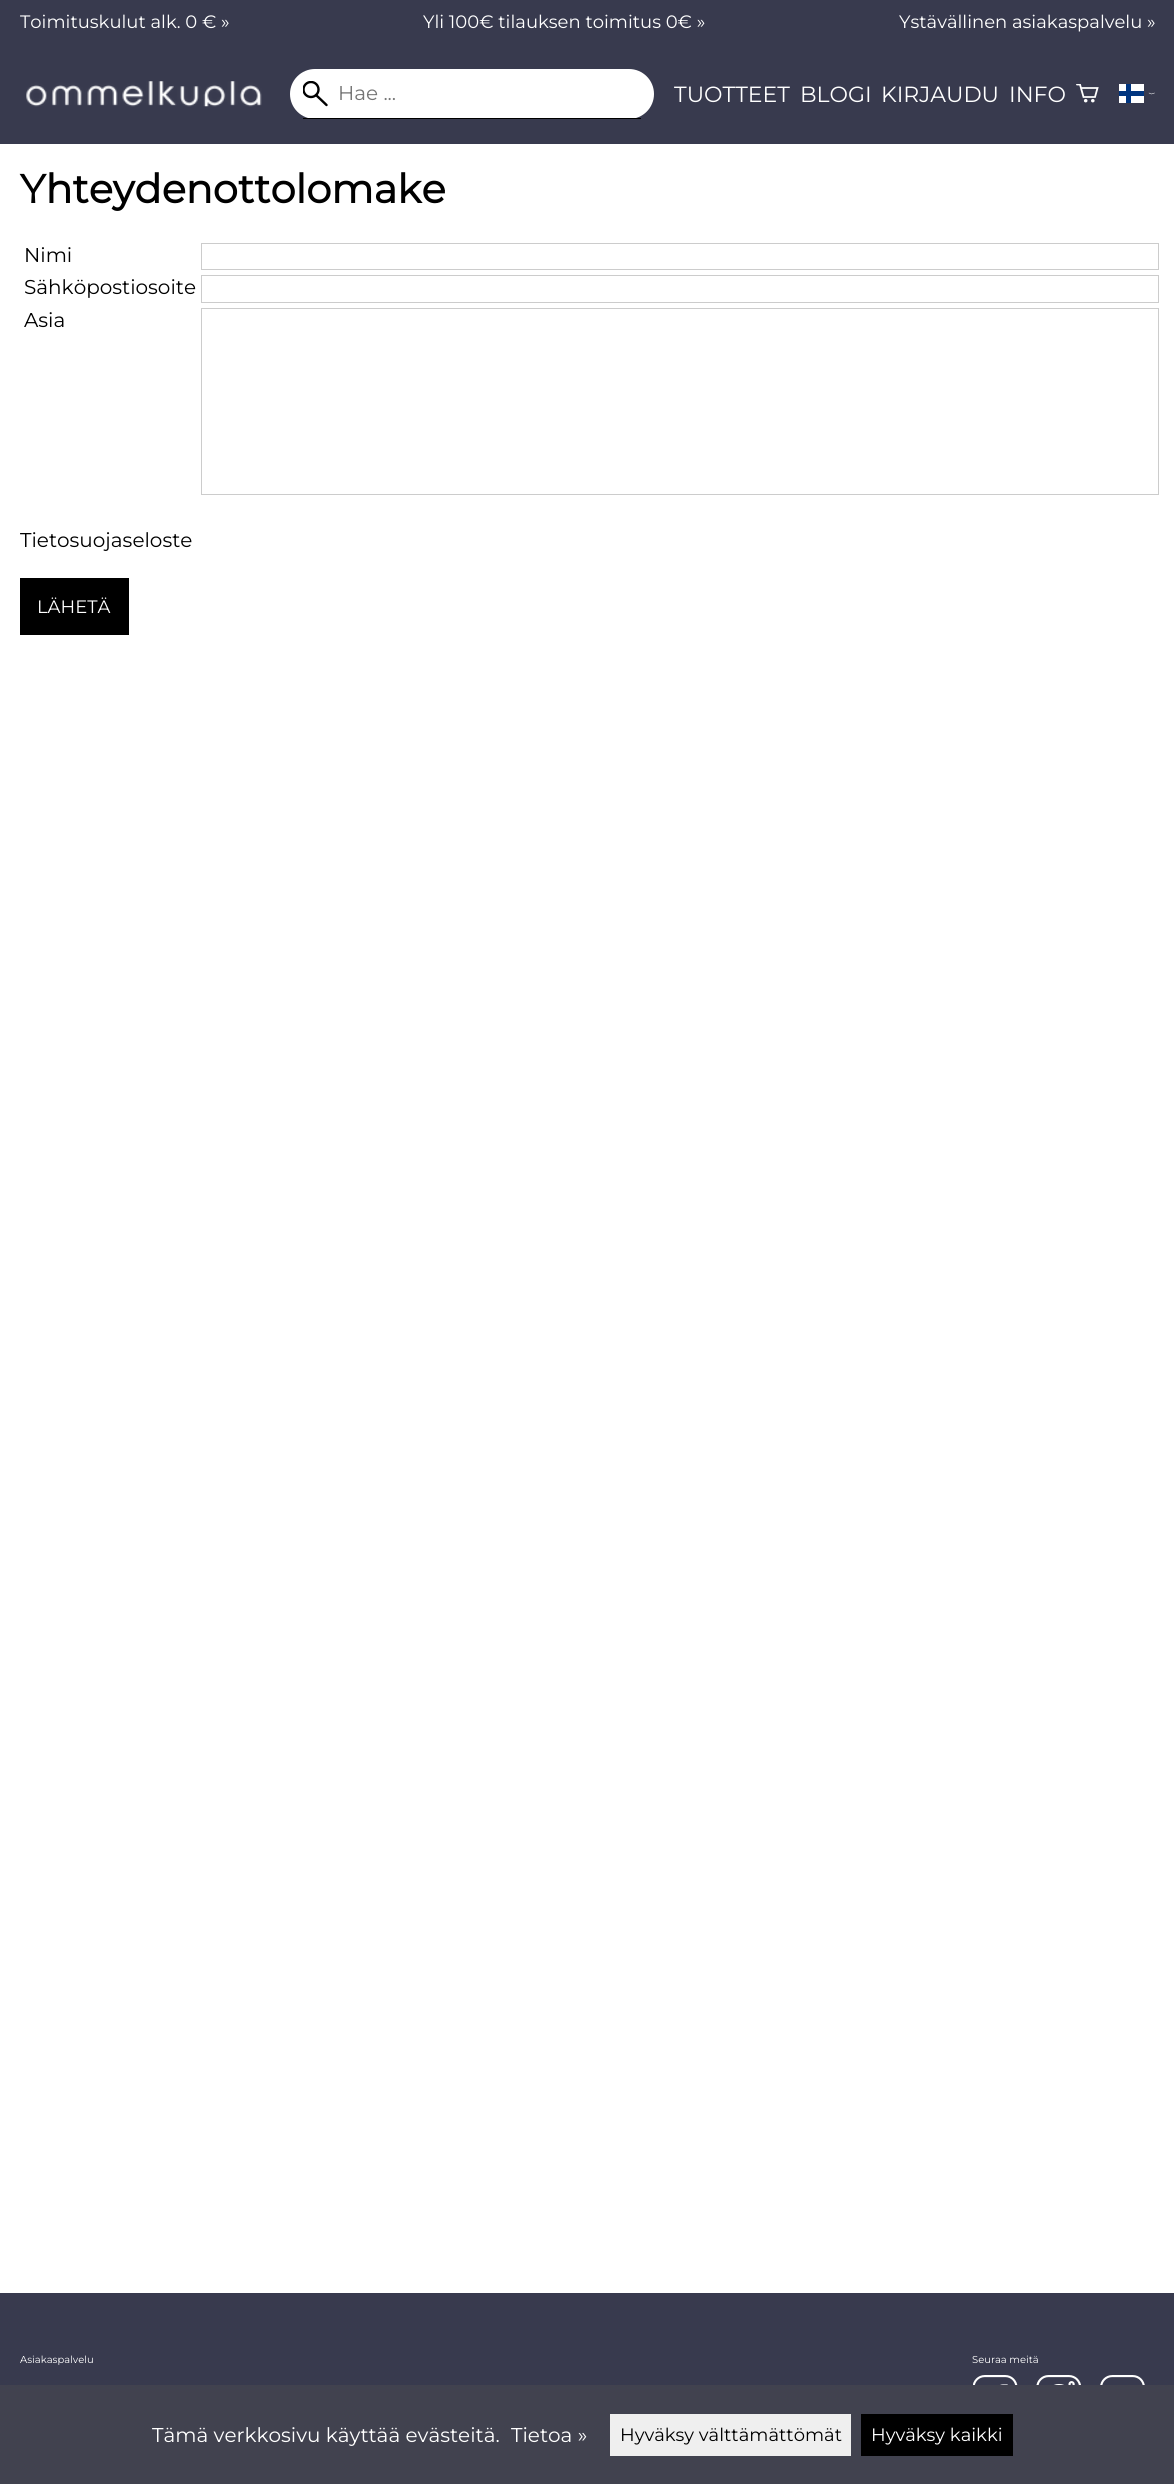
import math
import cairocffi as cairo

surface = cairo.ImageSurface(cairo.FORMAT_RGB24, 1174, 2484)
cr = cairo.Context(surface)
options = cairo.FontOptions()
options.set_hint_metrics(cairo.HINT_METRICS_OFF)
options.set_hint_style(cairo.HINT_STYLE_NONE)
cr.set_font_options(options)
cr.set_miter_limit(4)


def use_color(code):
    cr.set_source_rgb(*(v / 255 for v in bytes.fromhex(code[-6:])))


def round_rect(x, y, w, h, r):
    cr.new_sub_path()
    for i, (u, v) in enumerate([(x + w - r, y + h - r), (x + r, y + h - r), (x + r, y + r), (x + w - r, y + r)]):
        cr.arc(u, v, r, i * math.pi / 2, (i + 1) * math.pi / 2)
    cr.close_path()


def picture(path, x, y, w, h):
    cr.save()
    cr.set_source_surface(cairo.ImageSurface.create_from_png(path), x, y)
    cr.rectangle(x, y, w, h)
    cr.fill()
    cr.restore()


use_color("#ffffff")
cr.paint()
use_color("#383a4e")
cr.rectangle(0, 0, 1174, 144)
cr.fill()
cr.select_font_face("Montserrat Thin")
cr.set_font_size(18)
use_color("#ffffff")
cr.move_to(20, 28)
cr.show_text("Toimituskulut alk. 0 € »")
cr.move_to(423, 28)
cr.show_text("Yli 100€ tilauksen toimitus 0€ »")
cr.move_to(899, 28)
cr.show_text("Ystävällinen asiakaspalvelu »")
picture("img1.png", 26, 81, 236, 26)
round_rect(290, 69, 364, 50, 25)
cr.fill()
cr.new_path()
cr.move_to(326.5, 105)
cr.line_to(316, 95)
use_color("#000000")
cr.set_line_width(2.4)
cr.set_line_cap(cairo.LINE_CAP_ROUND)
cr.stroke()
cr.save()
cr.rectangle(303, 81, 25, 25)
cr.clip()
cr.arc(311, 89.5, 7.5, 0, 2 * math.pi)
cr.set_line_cap(cairo.LINE_CAP_BUTT)
cr.stroke()
cr.restore()
cr.rectangle(303, 118, 338, 1)
cr.fill()
cr.set_font_size(20)
use_color("#757575")
cr.move_to(338, 100)
cr.show_text("Hae ...")
cr.set_font_size(22)
use_color("#ffffff")
cr.move_to(674, 102)
cr.show_text("TUOTTEET")
cr.move_to(800, 102)
cr.show_text("BLOGI")
cr.move_to(881, 102)
cr.show_text("KIRJAUDU")
cr.move_to(1009, 102)
cr.show_text("INFO")
cr.save()
cr.rectangle(1076, 84, 23, 19)
cr.clip()
cr.new_path()
cr.move_to(1081, 88)
cr.line_to(1097.5, 88)
cr.line_to(1095, 97)
cr.line_to(1083.5, 97)
cr.line_to(1080, 84.5)
cr.line_to(1077, 84.5)
cr.set_line_width(1.8)
cr.stroke()
cr.restore()
cr.arc(1085.7, 100.7, 0.9, 0, 2 * math.pi)
cr.set_line_width(1.8)
cr.set_line_cap(cairo.LINE_CAP_BUTT)
cr.stroke()
cr.arc(1092.8, 100.7, 0.9, 0, 2 * math.pi)
cr.stroke()
cr.rectangle(1119, 84, 25, 19)
cr.fill()
use_color("#003580")
cr.rectangle(1119, 91, 25, 5)
cr.fill()
cr.rectangle(1126, 84, 5, 19)
cr.fill()
cr.new_path()
cr.move_to(1149, 93)
cr.line_to(1151.5, 94)
cr.line_to(1154.5, 93)
use_color("#ffffff")
cr.set_line_width(0.5)
cr.set_line_cap(cairo.LINE_CAP_ROUND)
cr.stroke()
cr.select_font_face("Montserrat", cairo.FONT_SLANT_NORMAL, cairo.FONT_WEIGHT_BOLD)
cr.set_font_size(40)
use_color("#000000")
cr.move_to(20, 203)
cr.show_text("Yhteydenottolomake")
cr.select_font_face("Montserrat Thin")
cr.set_font_size(20)
cr.move_to(24, 262)
cr.show_text("Nimi")
cr.rectangle(201.5, 243.5, 957, 26)
use_color("#cccccc")
cr.set_line_width(1)
cr.set_line_cap(cairo.LINE_CAP_BUTT)
cr.stroke()
use_color("#000000")
cr.move_to(24, 294)
cr.show_text("Sähköpostiosoite")
cr.rectangle(201.5, 275.5, 957, 27)
use_color("#cccccc")
cr.stroke()
use_color("#000000")
cr.move_to(24, 327)
cr.show_text("Asia")
cr.rectangle(201.5, 308.5, 957, 186)
use_color("#cccccc")
cr.stroke()
use_color("#000000")
cr.move_to(20, 547)
cr.show_text("Tietosuojaseloste")
cr.rectangle(20, 578, 109, 57)
cr.fill()
cr.set_font_size(18)
use_color("#ffffff")
cr.move_to(37, 613)
cr.show_text("LÄHETÄ")
use_color("#383a4e")
cr.rectangle(0, 2293, 1174, 92)
cr.fill()
cr.set_font_size(10)
use_color("#ffffff")
cr.move_to(20, 2363)
cr.show_text("Asiakaspalvelu")
cr.move_to(972, 2363)
cr.show_text("Seuraa meitä")
picture("img2.png", 973, 2375, 45, 10)
picture("img3.png", 1036, 2375, 45, 10)
picture("img4.png", 1100, 2375, 45, 10)
use_color("#41424f")
cr.rectangle(0, 2385, 1174, 99)
cr.fill()
cr.set_font_size(20)
use_color("#ffffff")
cr.move_to(152, 2442)
cr.show_text("Tämä verkkosivu käyttää evästeitä.")
cr.move_to(511, 2442)
cr.show_text("Tietoa »")
use_color("#efefef")
cr.rectangle(610, 2414, 241, 42)
cr.fill()
cr.set_font_size(18)
use_color("#000000")
cr.move_to(620, 2441)
cr.show_text("Hyväksy välttämättömät")
cr.rectangle(861, 2414, 152, 42)
cr.fill()
use_color("#ffffff")
cr.move_to(871, 2441)
cr.show_text("Hyväksy kaikki")
surface.write_to_png("result.png")
